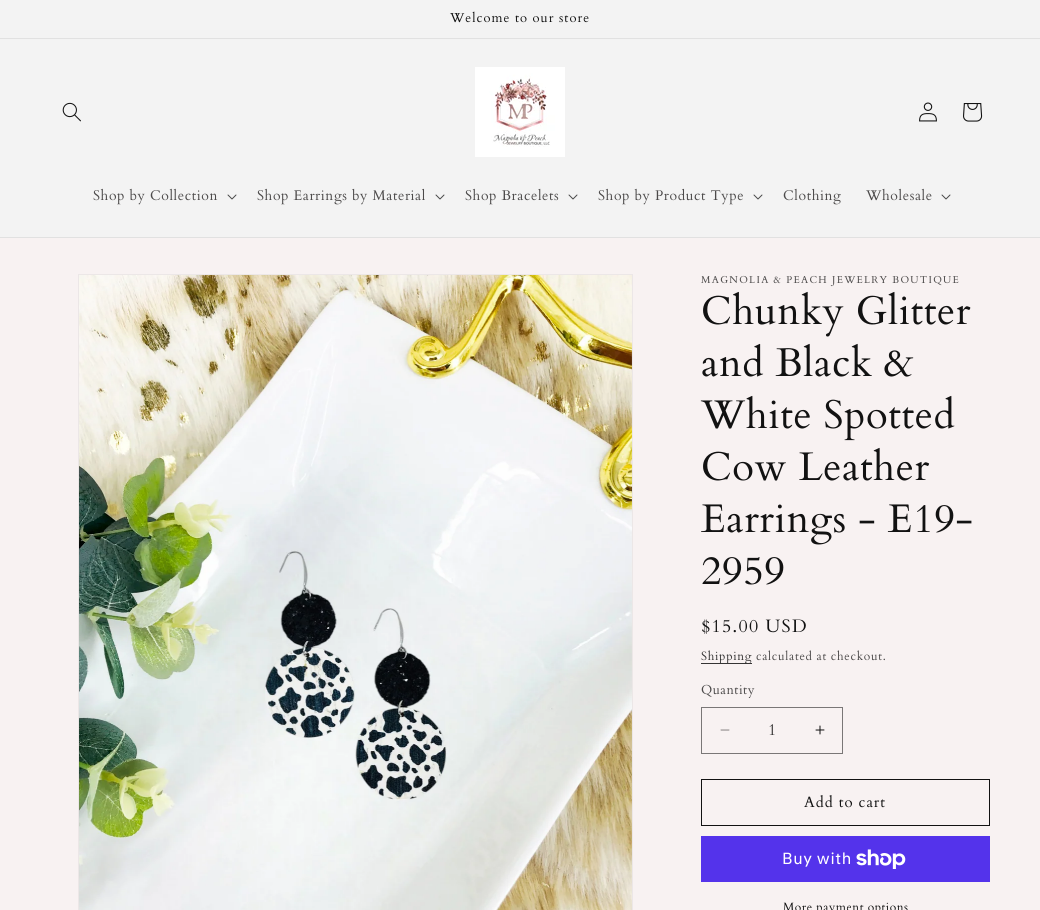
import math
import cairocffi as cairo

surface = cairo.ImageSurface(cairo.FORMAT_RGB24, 1040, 910)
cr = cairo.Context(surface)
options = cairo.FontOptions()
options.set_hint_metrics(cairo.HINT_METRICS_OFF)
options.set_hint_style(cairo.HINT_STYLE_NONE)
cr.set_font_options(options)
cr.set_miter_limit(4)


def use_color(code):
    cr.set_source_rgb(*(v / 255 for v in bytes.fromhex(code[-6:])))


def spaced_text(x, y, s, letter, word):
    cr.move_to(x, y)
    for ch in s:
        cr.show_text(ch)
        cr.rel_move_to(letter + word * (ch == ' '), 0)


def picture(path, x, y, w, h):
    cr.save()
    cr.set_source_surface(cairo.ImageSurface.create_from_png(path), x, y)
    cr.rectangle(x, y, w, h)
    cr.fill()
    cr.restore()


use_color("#f8f2f2")
cr.paint()
use_color("#f3f3f3")
cr.rectangle(0, 0, 1040, 38)
cr.fill()
use_color("#e1e1e1")
cr.rectangle(0, 38, 1040, 1)
cr.fill()
cr.select_font_face("Cardo")
cr.set_font_size(13)
use_color("#121212")
spaced_text(450, 22, "Welcome to our store", 1, 0)
use_color("#f3f3f3")
cr.rectangle(0, 39, 1040, 198)
cr.fill()
use_color("#e1e1e1")
cr.rectangle(0, 237, 1040, 1)
cr.fill()
picture("img1.png", 62, 102, 19, 20)
picture("img2.png", 475, 67, 90, 90)
picture("img3.png", 919, 102, 18, 20)
picture("img4.png", 963, 103, 20, 19)
cr.set_font_size(14)
use_color("#4c4a4a")
spaced_text(93, 200, "Shop by Collection", 0.6, 0)
picture("img5.png", 227, 194, 10, 6)
spaced_text(257, 200, "Shop Earrings by Material", 0.6, 0)
picture("img5.png", 435, 194, 10, 6)
spaced_text(465, 200, "Shop Bracelets", 0.6, 0)
picture("img5.png", 568, 194, 10, 6)
spaced_text(598, 200, "Shop by Product Type", 0.6, 0)
picture("img5.png", 753, 194, 10, 6)
spaced_text(783, 200, "Clothing", 0.6, 0)
spaced_text(866, 200, "Wholesale", 0.6, 0)
picture("img5.png", 941, 194, 10, 6)
cr.rectangle(78.5, 274.5, 554, 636)
use_color("#ece7e7")
cr.set_line_width(1)
cr.stroke()
picture("img6.png", 79, 275, 553, 635)
cr.set_font_size(10)
use_color("#4c4a4a")
spaced_text(701, 283, "MAGNOLIA & PEACH JEWELRY BOUTIQUE", 1.3, 0)
cr.set_font_size(40)
use_color("#121212")
spaced_text(701, 324, "Chunky Glitter", 0.6, 0)
spaced_text(701, 376, "and Black &", 0.6, 0)
spaced_text(701, 428, "White Spotted", 0.6, 0)
spaced_text(701, 480, "Cow Leather", 0.6, 0)
spaced_text(701, 532, "Earrings - E19-", 0.6, 0)
spaced_text(701, 584, "2959", 0.6, 0)
cr.set_font_size(18)
spaced_text(701, 632, "$15.00 USD", 1.3, 0)
use_color("#353434")
cr.rectangle(701, 663, 51, 1)
cr.fill()
cr.set_font_size(12)
use_color("#333232")
spaced_text(701, 660, "Shipping", 0.7, 0)
use_color("#4c4a4a")
spaced_text(756, 660, "calculated at checkout.", 0.7, 0)
cr.set_font_size(13)
spaced_text(701, 694, "Quantity", 0.5, 0)
picture("img7.png", 720, 729, 10, 2)
picture("img8.png", 815, 725, 10, 10)
cr.rectangle(701.5, 707.5, 141, 46)
use_color("#7a7777")
cr.stroke()
cr.set_font_size(16)
use_color("#333232")
cr.move_to(768, 735)
cr.show_text("1")
cr.rectangle(701.5, 779.5, 288, 46)
use_color("#121212")
cr.stroke()
cr.set_font_size(15)
spaced_text(804, 807, "Add to cart", 1, 0)
use_color("#5433eb")
cr.rectangle(701, 836, 289, 46)
cr.fill()
cr.select_font_face("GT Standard")
cr.set_font_size(16)
use_color("#ffffff")
spaced_text(782, 864, "Buy with", 0.6, 0)
picture("img9.png", 856, 849, 50, 20)
cr.select_font_face("Cardo")
cr.set_font_size(12)
use_color("#121212")
spaced_text(783, 911, "More payment options", 0.5, 0)
surface.write_to_png("result.png")
